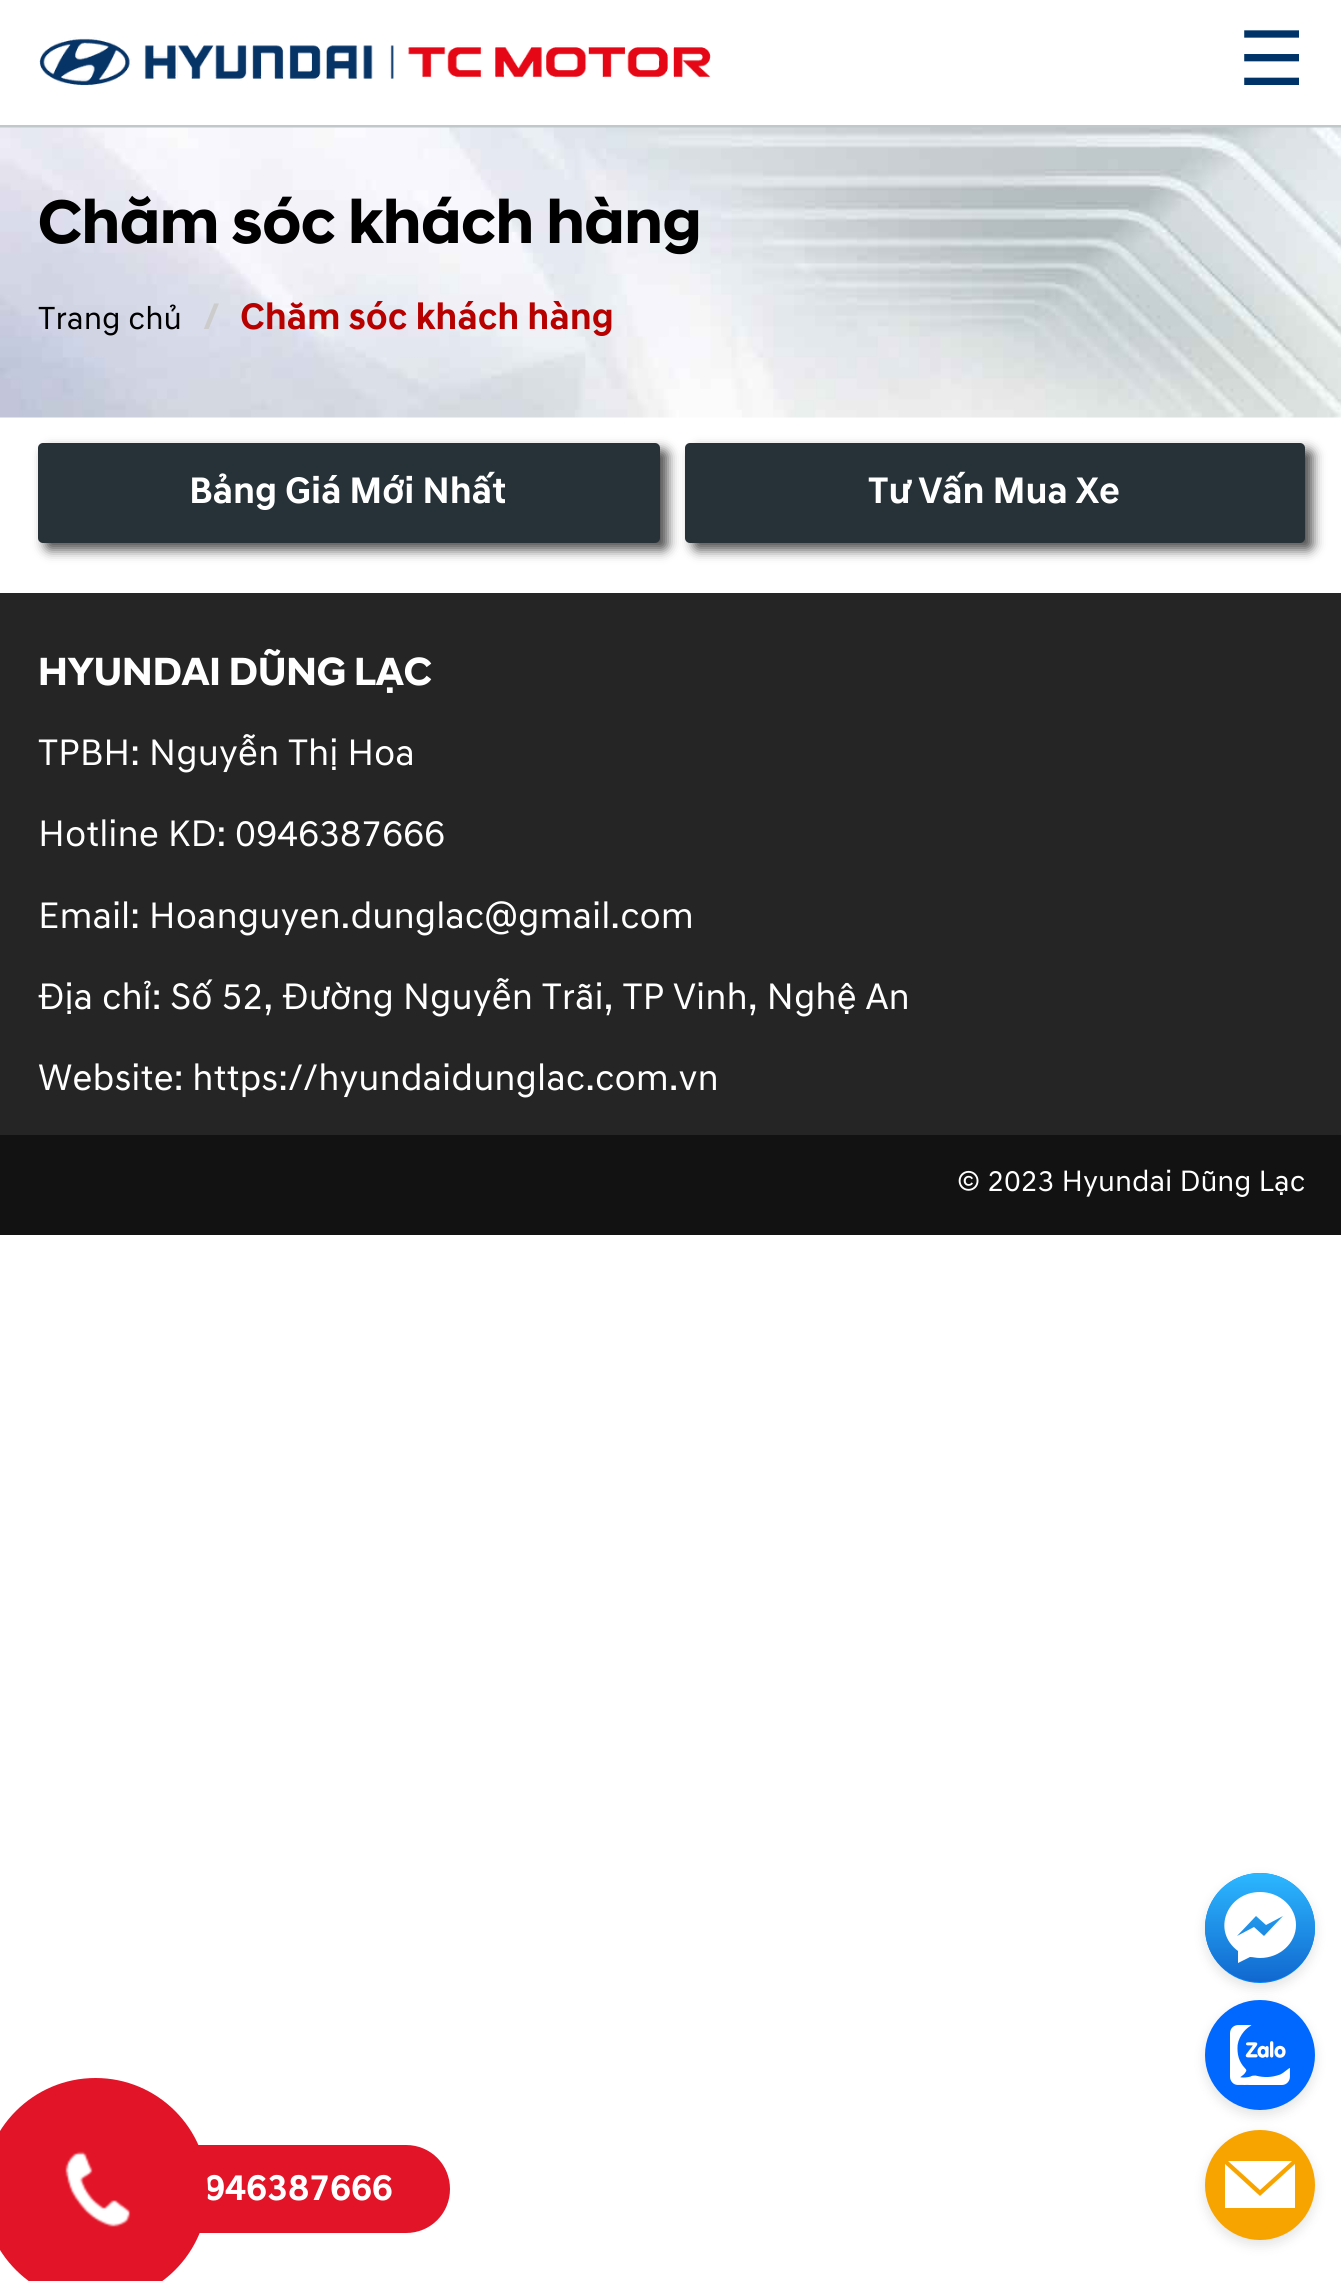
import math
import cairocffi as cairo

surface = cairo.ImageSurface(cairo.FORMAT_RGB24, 1341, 2281)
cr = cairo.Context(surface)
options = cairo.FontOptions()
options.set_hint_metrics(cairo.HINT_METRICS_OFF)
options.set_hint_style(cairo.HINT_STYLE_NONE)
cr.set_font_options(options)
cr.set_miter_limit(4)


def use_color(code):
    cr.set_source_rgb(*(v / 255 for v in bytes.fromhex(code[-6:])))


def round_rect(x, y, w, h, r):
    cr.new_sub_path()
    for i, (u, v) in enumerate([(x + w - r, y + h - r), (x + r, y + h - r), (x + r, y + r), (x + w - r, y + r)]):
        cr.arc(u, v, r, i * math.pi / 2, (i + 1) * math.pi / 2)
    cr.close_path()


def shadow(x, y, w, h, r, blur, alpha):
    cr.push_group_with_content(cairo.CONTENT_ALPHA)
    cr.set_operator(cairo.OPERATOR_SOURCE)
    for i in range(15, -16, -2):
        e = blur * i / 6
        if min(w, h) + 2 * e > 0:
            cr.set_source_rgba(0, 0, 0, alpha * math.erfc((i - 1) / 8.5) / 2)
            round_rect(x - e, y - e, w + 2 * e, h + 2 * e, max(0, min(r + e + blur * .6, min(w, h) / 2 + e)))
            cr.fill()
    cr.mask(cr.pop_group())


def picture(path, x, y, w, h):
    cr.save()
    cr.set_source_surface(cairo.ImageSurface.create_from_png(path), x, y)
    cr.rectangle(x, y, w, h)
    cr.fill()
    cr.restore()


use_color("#ffffff")
cr.paint()
use_color("#c0c8c9")
cr.rectangle(0, 125, 1341, 3)
cr.fill()
picture("img1.png", 39, 37, 672, 49)
cr.select_font_face("DejaVu Sans")
cr.set_font_size(75)
use_color("#003468")
cr.move_to(1238, 85)
cr.show_text("☰")
picture("img2.png", 0, 127, 1341, 291)
cr.select_font_face("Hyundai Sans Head", cairo.FONT_SLANT_NORMAL, cairo.FONT_WEIGHT_BOLD)
cr.set_font_size(62.5)
use_color("#000000")
cr.move_to(38, 243)
cr.show_text("Chăm sóc khách hàng")
cr.select_font_face("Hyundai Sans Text")
cr.set_font_size(32.5)
cr.move_to(38, 329)
cr.show_text("Trang chủ")
cr.select_font_face("Hyundai Sans Text", cairo.FONT_SLANT_NORMAL, cairo.FONT_WEIGHT_BOLD)
cr.set_font_size(37.5)
use_color("#cccccc")
cr.move_to(203, 329)
cr.show_text("/")
use_color("#b70100")
cr.move_to(240, 329)
cr.show_text("Chăm sóc khách hàng")
use_color("#515151")
shadow(45, 450, 623, 100, 5, 6, 1)
use_color("#273238")
round_rect(38, 443, 622, 100, 5)
cr.fill()
use_color("#ffffff")
cr.move_to(189, 503)
cr.show_text("Bảng Giá Mới Nhất")
use_color("#515151")
shadow(693, 450, 620, 100, 5, 6, 1)
use_color("#273238")
round_rect(685, 443, 620, 100, 5)
cr.fill()
use_color("#ffffff")
cr.move_to(868, 503)
cr.show_text("Tư Vấn Mua Xe")
use_color("#252525")
cr.rectangle(0, 593, 1341, 542)
cr.fill()
cr.select_font_face("Hyundai Sans Head", cairo.FONT_SLANT_NORMAL, cairo.FONT_WEIGHT_BOLD)
cr.set_font_size(40)
use_color("#ffffff")
cr.move_to(38, 685)
cr.show_text("HYUNDAI DŨNG LẠC")
cr.select_font_face("Hyundai Sans Text")
cr.set_font_size(37.5)
cr.move_to(38, 765)
cr.show_text("TPBH: Nguyễn Thị Hoa")
cr.move_to(38, 846)
cr.show_text("Hotline KD: 0946387666")
cr.move_to(38, 928)
cr.show_text("Email: Hoanguyen.dunglac@gmail.com")
cr.move_to(38, 1009)
cr.show_text("Địa chỉ: Số 52, Đường Nguyễn Trãi, TP Vinh, Nghệ An")
cr.move_to(38, 1090)
cr.show_text("Website: https://hyundaidunglac.com.vn")
use_color("#121212")
cr.rectangle(0, 1135, 1341, 100)
cr.fill()
cr.set_font_size(30)
use_color("#ffffff")
cr.move_to(957, 1191)
cr.show_text("© 2023 Hyundai Dũng Lạc")
use_color("#e11428")
cr.new_path()
cr.move_to(125, 2145)
cr.line_to(406, 2145)
cr.curve_to(430.5, 2145, 450, 2164.5, 450, 2189)
cr.curve_to(450, 2213.5, 430.5, 2233, 406, 2233)
cr.line_to(125, 2233)
cr.close_path()
cr.fill()
cr.select_font_face("Hyundai Sans Text", cairo.FONT_SLANT_NORMAL, cairo.FONT_WEIGHT_BOLD)
cr.set_font_size(37.5)
use_color("#ffffff")
cr.move_to(204, 2200)
cr.show_text("946387666")
use_color("#e11428")
cr.new_path()
cr.arc(95.5, 2190.5, 112.5, 0, 2 * math.pi)
cr.fill()
picture("img3.png", 65, 2151, 66, 76)
use_color("#000000")
shadow(1205, 1878, 110, 110, 55, 6, 0.11)
use_color("#0084ff")
cr.arc(1260, 1928, 55, 0, 2 * math.pi)
cr.fill()
gradient = cairo.LinearGradient(1259, 1981, 1259, 1874)
gradient.add_color_stop_rgba(0, 0.067, 0.408, 0.812, 1)
gradient.add_color_stop_rgba(1, 0.173, 0.718, 1, 1)
cr.set_source(gradient)
cr.new_path()
cr.move_to(1260, 1873)
cr.curve_to(1290, 1873, 1315, 1897, 1315, 1928)
cr.curve_to(1315, 1958, 1290, 1982, 1260, 1982)
cr.curve_to(1230, 1982, 1205, 1958, 1205, 1928)
cr.curve_to(1205, 1897, 1230, 1873, 1260, 1873)
cr.close_path()
cr.fill()
use_color("#ffffff")
cr.set_fill_rule(cairo.FILL_RULE_EVEN_ODD)
cr.new_path()
cr.move_to(1260, 1892)
cr.curve_to(1227, 1892, 1211, 1931, 1238, 1951)
cr.line_to(1238, 1963)
cr.line_to(1250, 1957)
cr.curve_to(1253, 1957, 1256, 1958, 1260, 1958)
cr.curve_to(1280, 1958, 1296, 1943, 1296, 1925)
cr.curve_to(1296, 1907, 1280, 1892, 1260, 1892)
cr.close_path()
cr.move_to(1264, 1936)
cr.line_to(1254, 1927)
cr.line_to(1237, 1936)
cr.line_to(1256, 1916)
cr.line_to(1266, 1925)
cr.line_to(1283, 1916)
cr.close_path()
cr.fill()
use_color("#000000")
shadow(1205, 2005, 110, 110, 55, 6, 0.11)
use_color("#0068ff")
cr.arc(1260, 2055, 55, 0, 2 * math.pi)
cr.fill()
picture("img4.png", 1230, 2025, 60, 60)
use_color("#000000")
shadow(1205, 2135, 110, 110, 55, 6, 0.11)
use_color("#f7a400")
cr.arc(1260, 2185, 55, 0, 2 * math.pi)
cr.fill()
use_color("#ffffff")
cr.new_path()
cr.move_to(1228, 2161)
cr.line_to(1292, 2161)
cr.line_to(1260, 2190)
cr.close_path()
cr.move_to(1225, 2164)
cr.line_to(1260, 2196)
cr.line_to(1295, 2164)
cr.line_to(1295, 2208)
cr.line_to(1225, 2208)
cr.close_path()
cr.fill()
surface.write_to_png("result.png")
